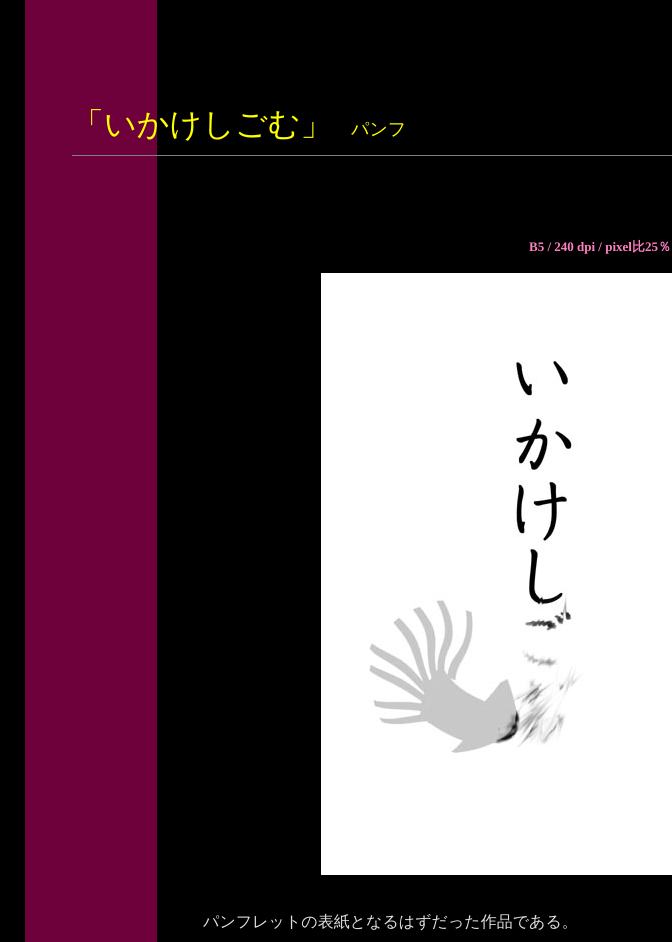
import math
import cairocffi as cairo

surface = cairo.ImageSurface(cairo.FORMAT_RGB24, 672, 942)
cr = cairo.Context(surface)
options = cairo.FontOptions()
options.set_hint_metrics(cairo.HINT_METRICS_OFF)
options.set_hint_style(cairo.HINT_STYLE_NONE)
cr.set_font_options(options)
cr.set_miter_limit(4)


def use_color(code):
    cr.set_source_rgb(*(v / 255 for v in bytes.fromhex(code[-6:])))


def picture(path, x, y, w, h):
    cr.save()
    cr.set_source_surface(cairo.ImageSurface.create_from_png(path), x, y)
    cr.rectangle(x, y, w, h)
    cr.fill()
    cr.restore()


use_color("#000000")
cr.paint()
use_color("#6e003b")
cr.rectangle(25, 0, 132, 942)
cr.fill()
cr.select_font_face("WenQuanYi Zen Hei Medium")
cr.set_font_size(32)
use_color("#ffff00")
cr.move_to(72, 135)
cr.show_text("「いかけしごむ」")
cr.set_font_size(18)
cr.move_to(351, 135)
cr.show_text("パンフ")
use_color("#808080")
cr.rectangle(72, 155, 600, 1)
cr.fill()
cr.select_font_face("Liberation Serif", cairo.FONT_SLANT_NORMAL, cairo.FONT_WEIGHT_BOLD)
cr.set_font_size(13)
use_color("#ff80c0")
cr.move_to(529, 251)
cr.show_text("B5 / 240 dpi / pixel")
cr.select_font_face("WenQuanYi Zen Hei", cairo.FONT_SLANT_NORMAL, cairo.FONT_WEIGHT_BOLD)
cr.move_to(632, 251)
cr.show_text("比")
cr.select_font_face("Liberation Serif", cairo.FONT_SLANT_NORMAL, cairo.FONT_WEIGHT_BOLD)
cr.move_to(645, 251)
cr.show_text("25")
cr.select_font_face("WenQuanYi Zen Hei", cairo.FONT_SLANT_NORMAL, cairo.FONT_WEIGHT_BOLD)
cr.move_to(658, 251)
cr.show_text("％")
picture("img1.png", 321, 273, 351, 602)
cr.select_font_face("WenQuanYi Zen Hei Medium")
cr.set_font_size(16)
use_color("#e0e0e0")
cr.move_to(203, 927)
cr.show_text("パンフレットの表紙となるはずだった作品である。")
surface.write_to_png("result.png")
